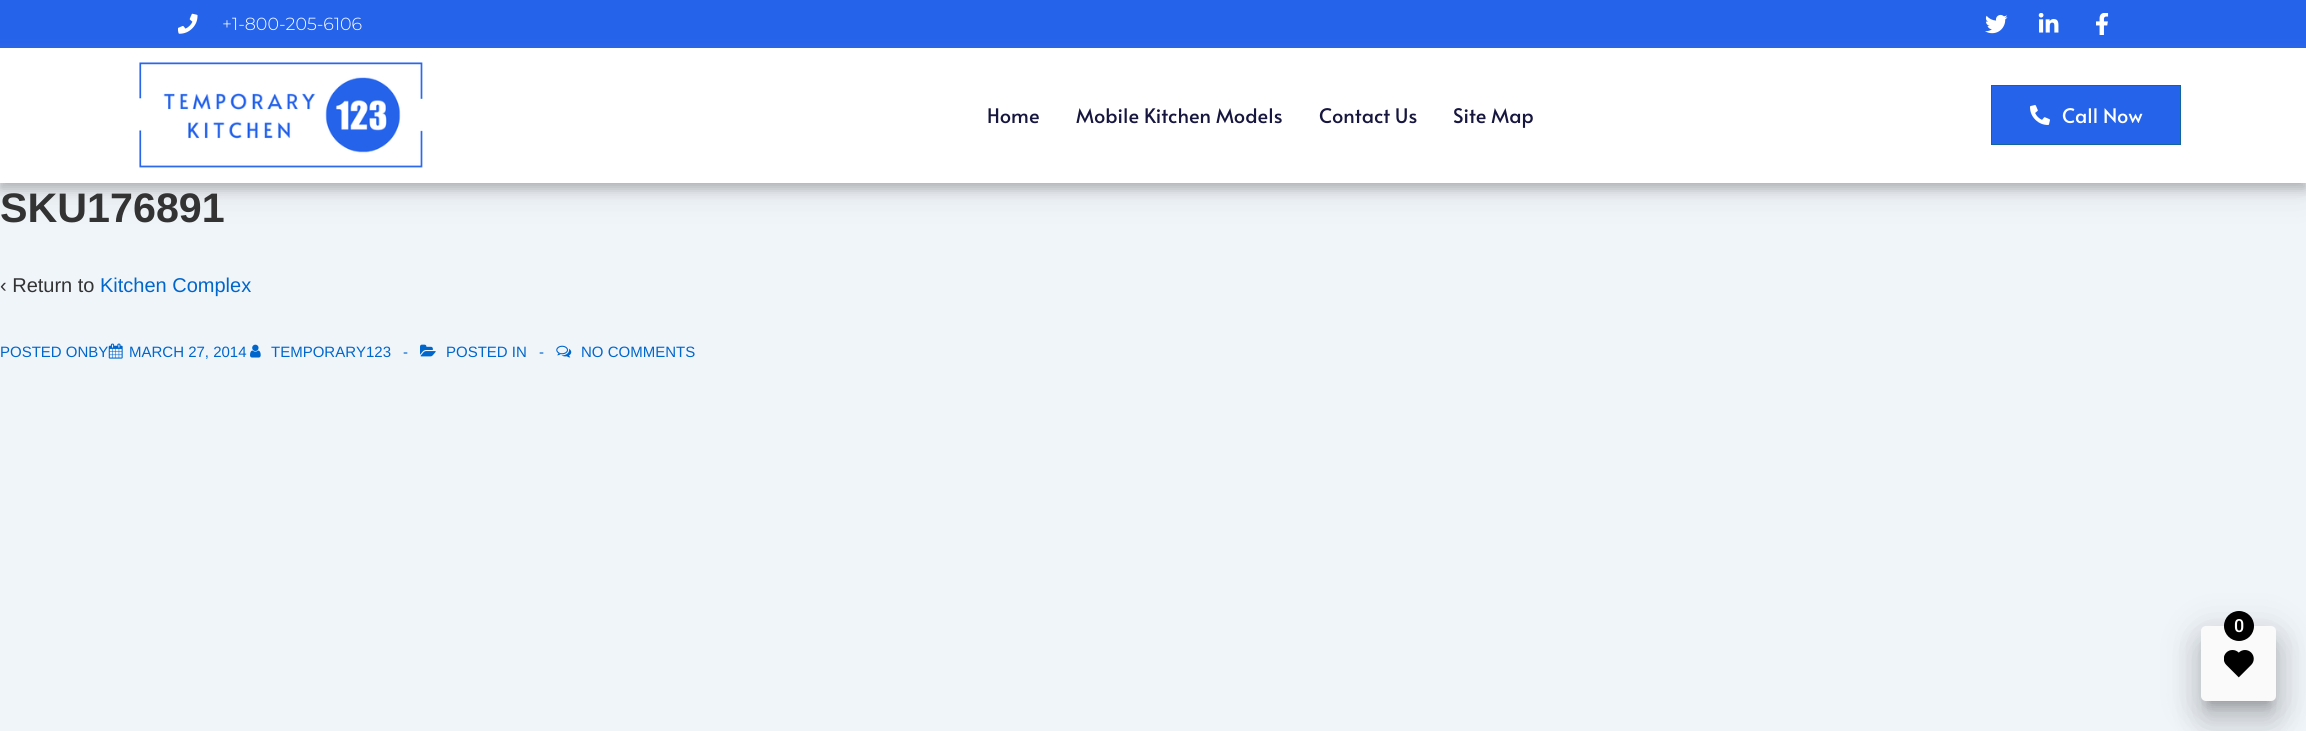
import math
import cairocffi as cairo

surface = cairo.ImageSurface(cairo.FORMAT_RGB24, 2306, 731)
cr = cairo.Context(surface)
options = cairo.FontOptions()
options.set_hint_metrics(cairo.HINT_METRICS_OFF)
options.set_hint_style(cairo.HINT_STYLE_NONE)
cr.set_font_options(options)
cr.set_miter_limit(4)


def use_color(code):
    cr.set_source_rgb(*(v / 255 for v in bytes.fromhex(code[-6:])))


def spaced_text(x, y, s, letter, word):
    cr.move_to(x, y)
    for ch in s:
        cr.show_text(ch)
        cr.rel_move_to(letter + word * (ch == ' '), 0)


def round_rect(x, y, w, h, r):
    cr.new_sub_path()
    for i, (u, v) in enumerate([(x + w - r, y + h - r), (x + r, y + h - r), (x + r, y + r), (x + w - r, y + r)]):
        cr.arc(u, v, r, i * math.pi / 2, (i + 1) * math.pi / 2)
    cr.close_path()


def shadow(x, y, w, h, r, blur, alpha):
    cr.push_group_with_content(cairo.CONTENT_ALPHA)
    cr.set_operator(cairo.OPERATOR_SOURCE)
    for i in range(15, -16, -2):
        e = blur * i / 6
        if min(w, h) + 2 * e > 0:
            cr.set_source_rgba(0, 0, 0, alpha * math.erfc((i - 1) / 8.5) / 2)
            round_rect(x - e, y - e, w + 2 * e, h + 2 * e, max(0, min(r + e + blur * .6, min(w, h) / 2 + e)))
            cr.fill()
    cr.mask(cr.pop_group())


def picture(path, x, y, w, h):
    cr.save()
    cr.set_source_surface(cairo.ImageSurface.create_from_png(path), x, y)
    cr.rectangle(x, y, w, h)
    cr.fill()
    cr.restore()


use_color("#f0f5fa")
cr.paint()
use_color("#000000")
shadow(0, 6, 2306, 183, 0, 19, 0.1)
use_color("#2563eb")
cr.rectangle(0, 0, 2306, 48)
cr.fill()
picture("img1.png", 178, 13, 20, 21)
cr.select_font_face("Montserrat Light")
cr.set_font_size(17.5)
use_color("#ffffff")
cr.move_to(222, 30)
cr.show_text("+1-800-205-6106")
picture("img2.png", 1985, 14, 23, 20)
picture("img3.png", 2038, 13, 21, 20)
picture("img4.png", 2096, 13, 13, 22)
use_color("#818181")
shadow(0, 54, 2306, 135, 0, 6, 0.5)
use_color("#ffffff")
cr.rectangle(0, 48, 2306, 135)
cr.fill()
picture("img5.png", 139, 62, 284, 106)
cr.select_font_face("Alata")
cr.set_font_size(20)
use_color("#16163f")
cr.move_to(987, 123)
cr.show_text("Home")
cr.move_to(1076, 123)
cr.show_text("Mobile Kitchen Models")
cr.move_to(1319, 123)
cr.show_text("Contact Us")
cr.move_to(1453, 123)
cr.show_text("Site Map")
use_color("#2563eb")
cr.rectangle(1991.5, 85.5, 189, 59)
cr.fill_preserve()
use_color("#10659c")
cr.set_line_width(1)
cr.stroke()
picture("img6.png", 2030, 105, 20, 20)
use_color("#ffffff")
cr.move_to(2062, 123)
cr.show_text("Call Now")
cr.select_font_face("Liberation Sans", cairo.FONT_SLANT_NORMAL, cairo.FONT_WEIGHT_BOLD)
cr.set_font_size(41.25)
use_color("#333333")
cr.move_to(0, 222)
cr.show_text("SKU176891")
cr.select_font_face("Liberation Sans")
cr.set_font_size(20)
cr.move_to(0, 292)
cr.show_text("‹ Return to")
use_color("#0066cc")
cr.move_to(100, 292)
cr.show_text("Kitchen Complex")
cr.set_font_size(15)
cr.move_to(0, 357)
cr.show_text("POSTED ONBY")
picture("img7.png", 108, 343, 15, 16)
cr.move_to(129, 357)
cr.show_text("MARCH 27, 2014")
picture("img8.png", 250, 344, 11, 14)
cr.move_to(271, 357)
cr.show_text("TEMPORARY123")
cr.move_to(403, 357)
cr.show_text("-")
picture("img9.png", 420, 344, 16, 13)
cr.move_to(446, 357)
cr.show_text("POSTED IN")
cr.move_to(539, 357)
cr.show_text("-")
picture("img10.png", 556, 345, 16, 13)
cr.move_to(581, 357)
cr.show_text("NO COMMENTS")
use_color("#000000")
shadow(2208, 643, 62, 62, 0, 6, 0.2)
shadow(2195, 628, 88, 87, 11, 19, 0.12)
shadow(2199, 644, 80, 80, 8, 15, 0.14)
use_color("#fafafa")
round_rect(2201, 626, 75, 75, 5)
cr.fill()
use_color("#000000")
cr.arc(2239, 626, 15, 0, 2 * math.pi)
cr.fill()
cr.select_font_face("Roboto Medium")
cr.set_font_size(18)
use_color("#ffffff")
spaced_text(2234, 632, "0", -1, 0)
picture("img11.png", 2224, 650, 30, 28)
surface.write_to_png("result.png")
